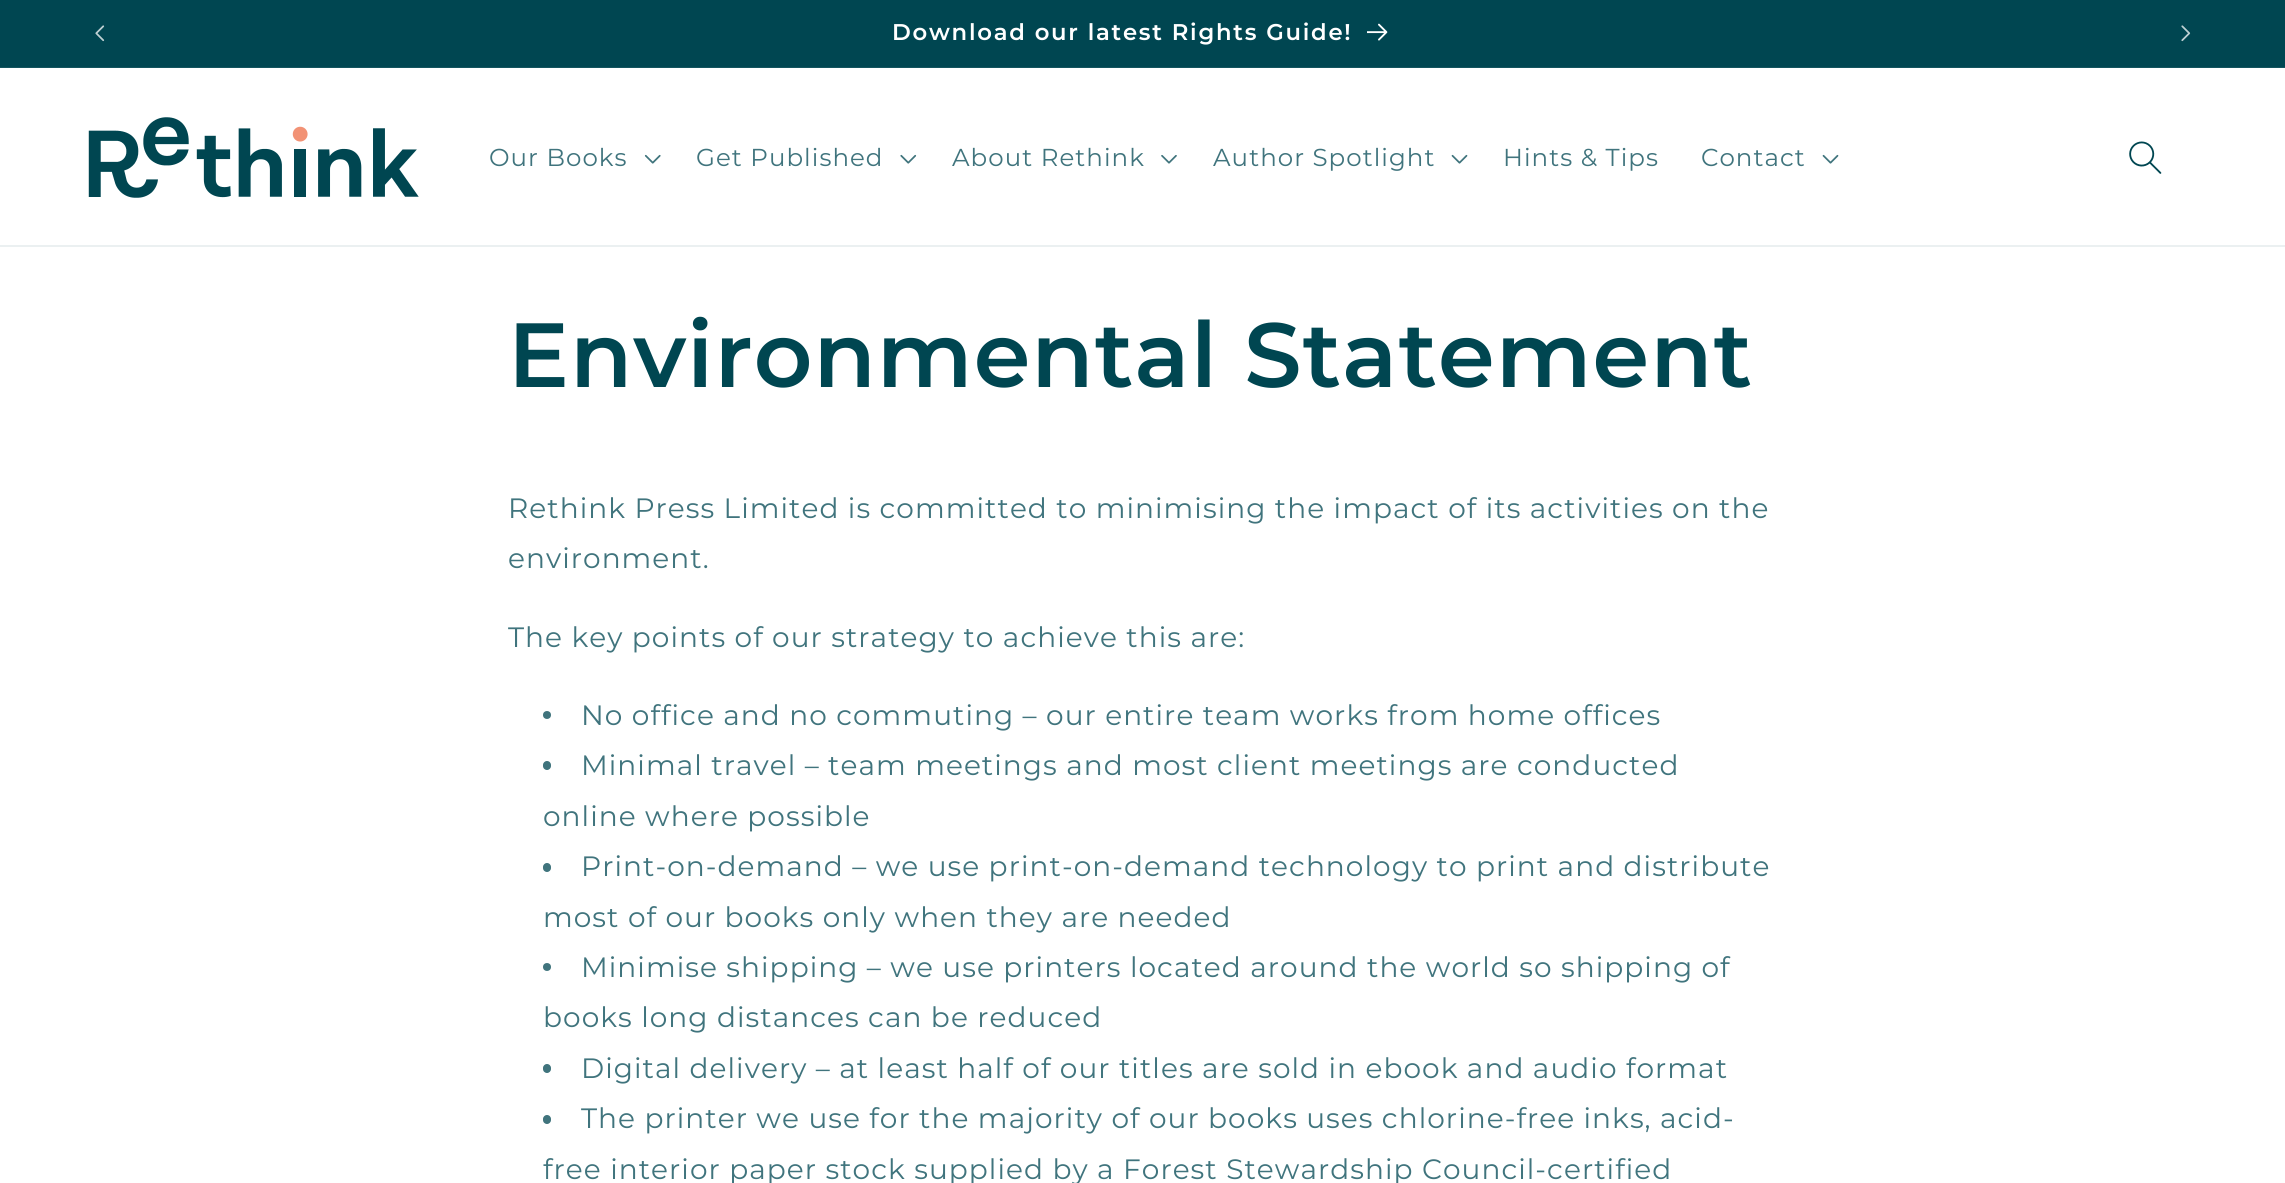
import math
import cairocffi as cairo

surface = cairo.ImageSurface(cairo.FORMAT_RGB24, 2285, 1183)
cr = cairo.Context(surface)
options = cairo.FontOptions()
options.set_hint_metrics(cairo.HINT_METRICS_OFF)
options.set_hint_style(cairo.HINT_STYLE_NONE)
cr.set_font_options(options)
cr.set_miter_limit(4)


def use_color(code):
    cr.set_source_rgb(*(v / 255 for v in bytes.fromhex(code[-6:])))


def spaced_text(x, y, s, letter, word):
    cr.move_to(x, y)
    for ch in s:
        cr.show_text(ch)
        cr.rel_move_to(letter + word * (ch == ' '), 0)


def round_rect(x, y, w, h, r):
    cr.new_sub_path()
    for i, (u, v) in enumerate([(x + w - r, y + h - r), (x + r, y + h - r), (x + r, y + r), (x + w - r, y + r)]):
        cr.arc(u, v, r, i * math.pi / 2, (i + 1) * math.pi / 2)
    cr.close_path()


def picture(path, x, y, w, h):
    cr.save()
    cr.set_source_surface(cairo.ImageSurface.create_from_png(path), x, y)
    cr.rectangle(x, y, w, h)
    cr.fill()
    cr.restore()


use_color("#ffffff")
cr.paint()
use_color("#004651")
cr.rectangle(0, 0, 2285, 67)
cr.fill()
use_color("#14555f")
cr.rectangle(0, 67, 2285, 1)
cr.fill()
picture("img1.png", 95, 25, 10, 17)
cr.select_font_face("Montserrat SemiBold")
cr.set_font_size(22.75)
use_color("#ffffff")
spaced_text(892, 40, "Download our latest Rights Guide!", 1.75, 0)
picture("img2.png", 1367, 23, 21, 18)
picture("img3.png", 2181, 25, 10, 17)
use_color("#ebf0f1")
cr.rectangle(0, 245, 2285, 2)
cr.fill()
picture("img4.png", 88, 117, 331, 81)
cr.select_font_face("Montserrat")
cr.set_font_size(24.5)
use_color("#40747d")
spaced_text(489, 166, "Our Books", 1.05, 0)
picture("img5.png", 644, 154, 17, 10)
spaced_text(696, 166, "Get Published", 1.05, 0)
picture("img6.png", 900, 154, 17, 10)
spaced_text(952, 166, "About Rethink", 1.05, 0)
picture("img7.png", 1161, 155, 16, 9)
spaced_text(1213, 166, "Author Spotlight", 1.05, 0)
picture("img8.png", 1451, 154, 17, 10)
spaced_text(1503, 166, "Hints & Tips", 1.05, 0)
spaced_text(1701, 166, "Contact", 1.05, 0)
picture("img8.png", 1822, 154, 17, 10)
picture("img9.png", 2129, 141, 33, 33)
cr.select_font_face("Montserrat SemiBold")
cr.set_font_size(91)
use_color("#004651")
spaced_text(508, 387, "Environmental Statement", 1.05, 0)
cr.select_font_face("Montserrat")
cr.set_font_size(28)
use_color("#40747d")
spaced_text(508, 518, "Rethink Press Limited is committed to minimising the impact of its activities on the", 1.05, 0)
spaced_text(508, 568, "environment.", 1.05, 0)
spaced_text(508, 647, "The key points of our strategy to achieve this are:", 1.05, 0)
cr.new_path()
cr.arc(547, 715, 4, 0, 2 * math.pi)
cr.fill()
spaced_text(581, 725, "No office and no commuting – our entire team works from home offices", 1.05, 0)
round_rect(543, 761, 8, 9, 4)
cr.fill()
spaced_text(581, 775, "Minimal travel – team meetings and most client meetings are conducted", 1.05, 0)
spaced_text(543, 826, "online where possible", 1.05, 0)
round_rect(543, 863, 8, 9, 4)
cr.fill()
spaced_text(581, 876, "Print-on-demand – we use print-on-demand technology to print and distribute", 1.05, 0)
spaced_text(543, 927, "most of our books only when they are needed", 1.05, 0)
cr.new_path()
cr.arc(547, 967, 4, 0, 2 * math.pi)
cr.fill()
spaced_text(581, 977, "Minimise shipping – we use printers located around the world so shipping of", 1.05, 0)
spaced_text(543, 1027, "books long distances can be reduced", 1.05, 0)
round_rect(543, 1064, 8, 9, 4)
cr.fill()
spaced_text(581, 1078, "Digital delivery – at least half of our titles are sold in ebook and audio format", 1.05, 0)
round_rect(543, 1115, 8, 9, 4)
cr.fill()
spaced_text(581, 1128, "The printer we use for the majority of our books uses chlorine-free inks, acid-", 1.05, 0)
spaced_text(543, 1179, "free interior paper stock supplied by a Forest Stewardship Council-certified", 1.05, 0)
surface.write_to_png("result.png")
